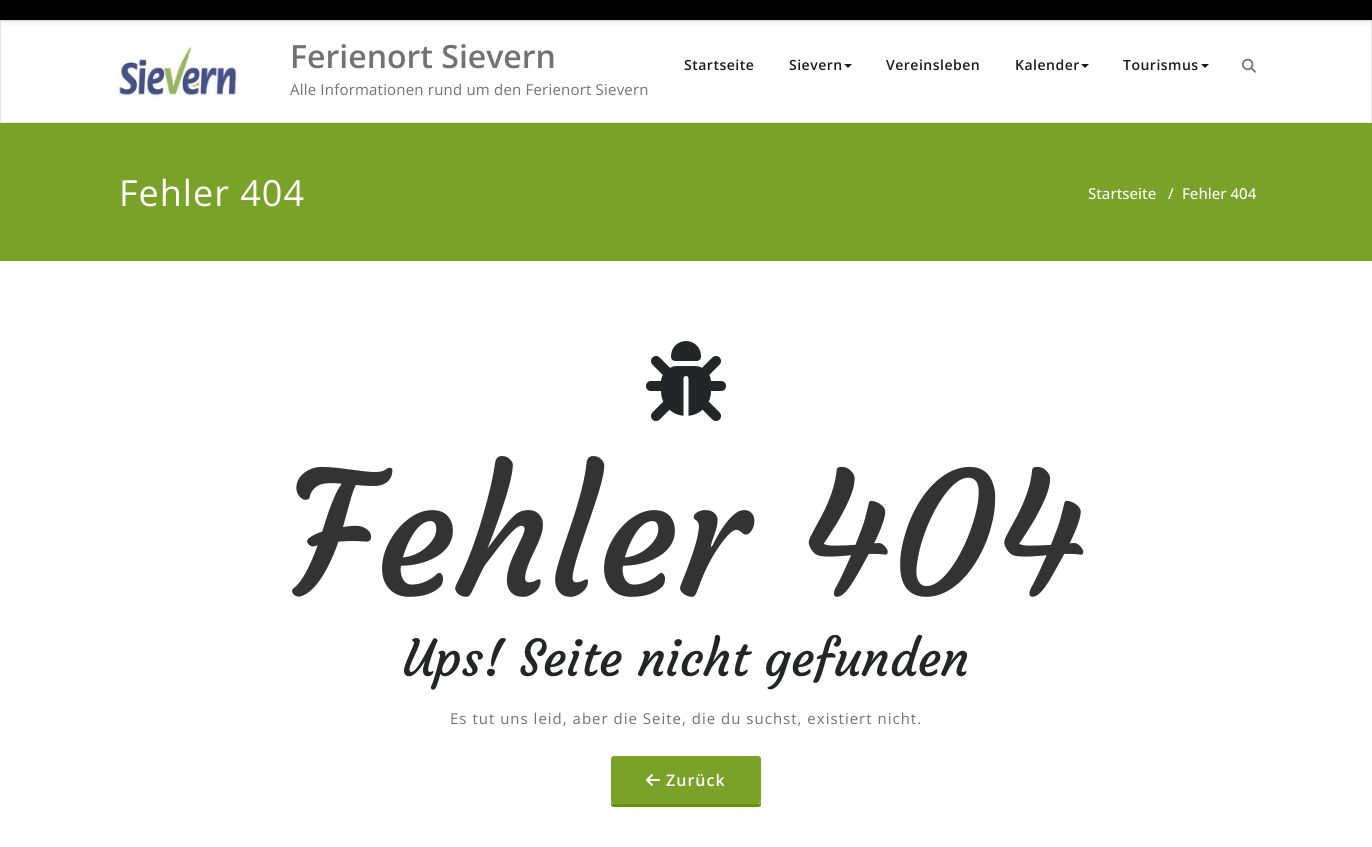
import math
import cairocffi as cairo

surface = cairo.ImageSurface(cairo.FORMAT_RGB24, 1372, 847)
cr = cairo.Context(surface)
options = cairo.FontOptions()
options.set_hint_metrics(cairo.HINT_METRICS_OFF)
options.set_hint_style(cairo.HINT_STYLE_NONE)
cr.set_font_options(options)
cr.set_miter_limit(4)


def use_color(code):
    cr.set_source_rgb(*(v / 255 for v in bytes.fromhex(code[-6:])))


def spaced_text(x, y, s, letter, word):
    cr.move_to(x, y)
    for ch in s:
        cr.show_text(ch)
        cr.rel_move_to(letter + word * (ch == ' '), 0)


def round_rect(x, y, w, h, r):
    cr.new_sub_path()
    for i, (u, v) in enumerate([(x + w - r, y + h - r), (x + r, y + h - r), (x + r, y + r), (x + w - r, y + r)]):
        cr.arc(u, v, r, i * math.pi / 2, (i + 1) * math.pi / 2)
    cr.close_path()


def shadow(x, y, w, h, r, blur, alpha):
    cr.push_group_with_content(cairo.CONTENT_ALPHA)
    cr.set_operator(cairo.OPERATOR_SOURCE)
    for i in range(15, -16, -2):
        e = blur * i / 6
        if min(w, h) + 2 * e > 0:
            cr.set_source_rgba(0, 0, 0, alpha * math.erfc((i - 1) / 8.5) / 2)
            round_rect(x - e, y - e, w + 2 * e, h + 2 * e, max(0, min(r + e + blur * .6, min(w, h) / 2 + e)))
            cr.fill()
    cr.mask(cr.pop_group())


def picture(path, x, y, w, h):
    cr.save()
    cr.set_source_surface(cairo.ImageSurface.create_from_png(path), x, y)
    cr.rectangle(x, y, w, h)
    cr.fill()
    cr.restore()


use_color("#ffffff")
cr.paint()
cr.rectangle(0.5, 20.5, 1371, 102)
use_color("#e7e7e7")
cr.set_line_width(1)
cr.stroke()
use_color("#000000")
shadow(0, 0, 1372, 20, 0, 4, 0.15)
use_color("#000000")
cr.rectangle(0, 0, 1372, 20)
cr.fill()
picture("img1.png", 116, 46, 123, 52)
cr.select_font_face("Open Sans SemiBold")
cr.set_font_size(32)
use_color("#727272")
cr.move_to(290, 68)
cr.show_text("Ferienort Sievern")
cr.select_font_face("Open Sans")
cr.set_font_size(15)
spaced_text(290, 95, "Alle Informationen rund um den Ferienort Sievern", 0.2, 0)
cr.select_font_face("Open Sans SemiBold")
cr.set_font_size(14)
use_color("#1b1b1b")
spaced_text(684, 70, "Startseite", 0.5, 0)
spaced_text(789, 70, "Sievern", 0.5, 0)
cr.new_path()
cr.move_to(844, 64)
cr.line_to(852, 64)
cr.line_to(848, 68)
cr.close_path()
cr.fill()
spaced_text(886, 70, "Vereinsleben", 0.5, 0)
spaced_text(1015, 70, "Kalender", 0.5, 0)
cr.new_path()
cr.move_to(1081, 64)
cr.line_to(1089, 64)
cr.line_to(1085, 68)
cr.close_path()
cr.fill()
spaced_text(1123, 70, "Tourismus", 0.5, 0)
cr.new_path()
cr.move_to(1201, 64)
cr.line_to(1209, 64)
cr.line_to(1205, 68)
cr.close_path()
cr.fill()
picture("img2.png", 1242, 58, 14, 15)
use_color("#7aa228")
cr.rectangle(0, 123, 1372, 138)
cr.fill()
cr.select_font_face("Open Sans")
cr.set_font_size(36)
use_color("#ffffff")
spaced_text(119, 206, "Fehler 404", 1, 0)
cr.select_font_face("Open Sans Medium")
cr.set_font_size(15)
cr.move_to(1088, 199)
cr.show_text("Startseite")
cr.move_to(1168, 199)
cr.show_text("/")
cr.move_to(1182, 199)
cr.show_text("Fehler 404")
picture("img3.png", 646, 341, 80, 80)
cr.select_font_face("Courgette")
cr.set_font_size(170)
use_color("#333333")
cr.move_to(287, 596)
cr.show_text("Fehler 404")
cr.set_font_size(50)
use_color("#242526")
cr.move_to(403, 676)
cr.show_text("Ups! Seite nicht gefunden")
cr.select_font_face("Open Sans")
cr.set_font_size(15)
use_color("#727272")
spaced_text(450, 724, "Es tut uns leid, aber die Seite, die du suchst, existiert nicht.", 1, 0)
use_color("#649403")
cr.new_path()
cr.move_to(611, 801)
cr.line_to(611, 804)
cr.curve_to(611, 806, 612, 807, 614, 807)
cr.line_to(758, 807)
cr.curve_to(760, 807, 761, 806, 761, 804)
cr.line_to(761, 801)
cr.curve_to(761, 803, 760, 804, 758, 804)
cr.line_to(614, 804)
cr.curve_to(612, 804, 611, 803, 611, 801)
cr.close_path()
cr.fill()
use_color("#7aa228")
round_rect(611, 756, 150, 48, 3)
cr.fill()
picture("img4.png", 646, 774, 14, 12)
cr.select_font_face("Open Sans SemiBold")
cr.set_font_size(16)
use_color("#ffffff")
spaced_text(666, 786, "Zurück", 1, 0)
surface.write_to_png("result.png")
